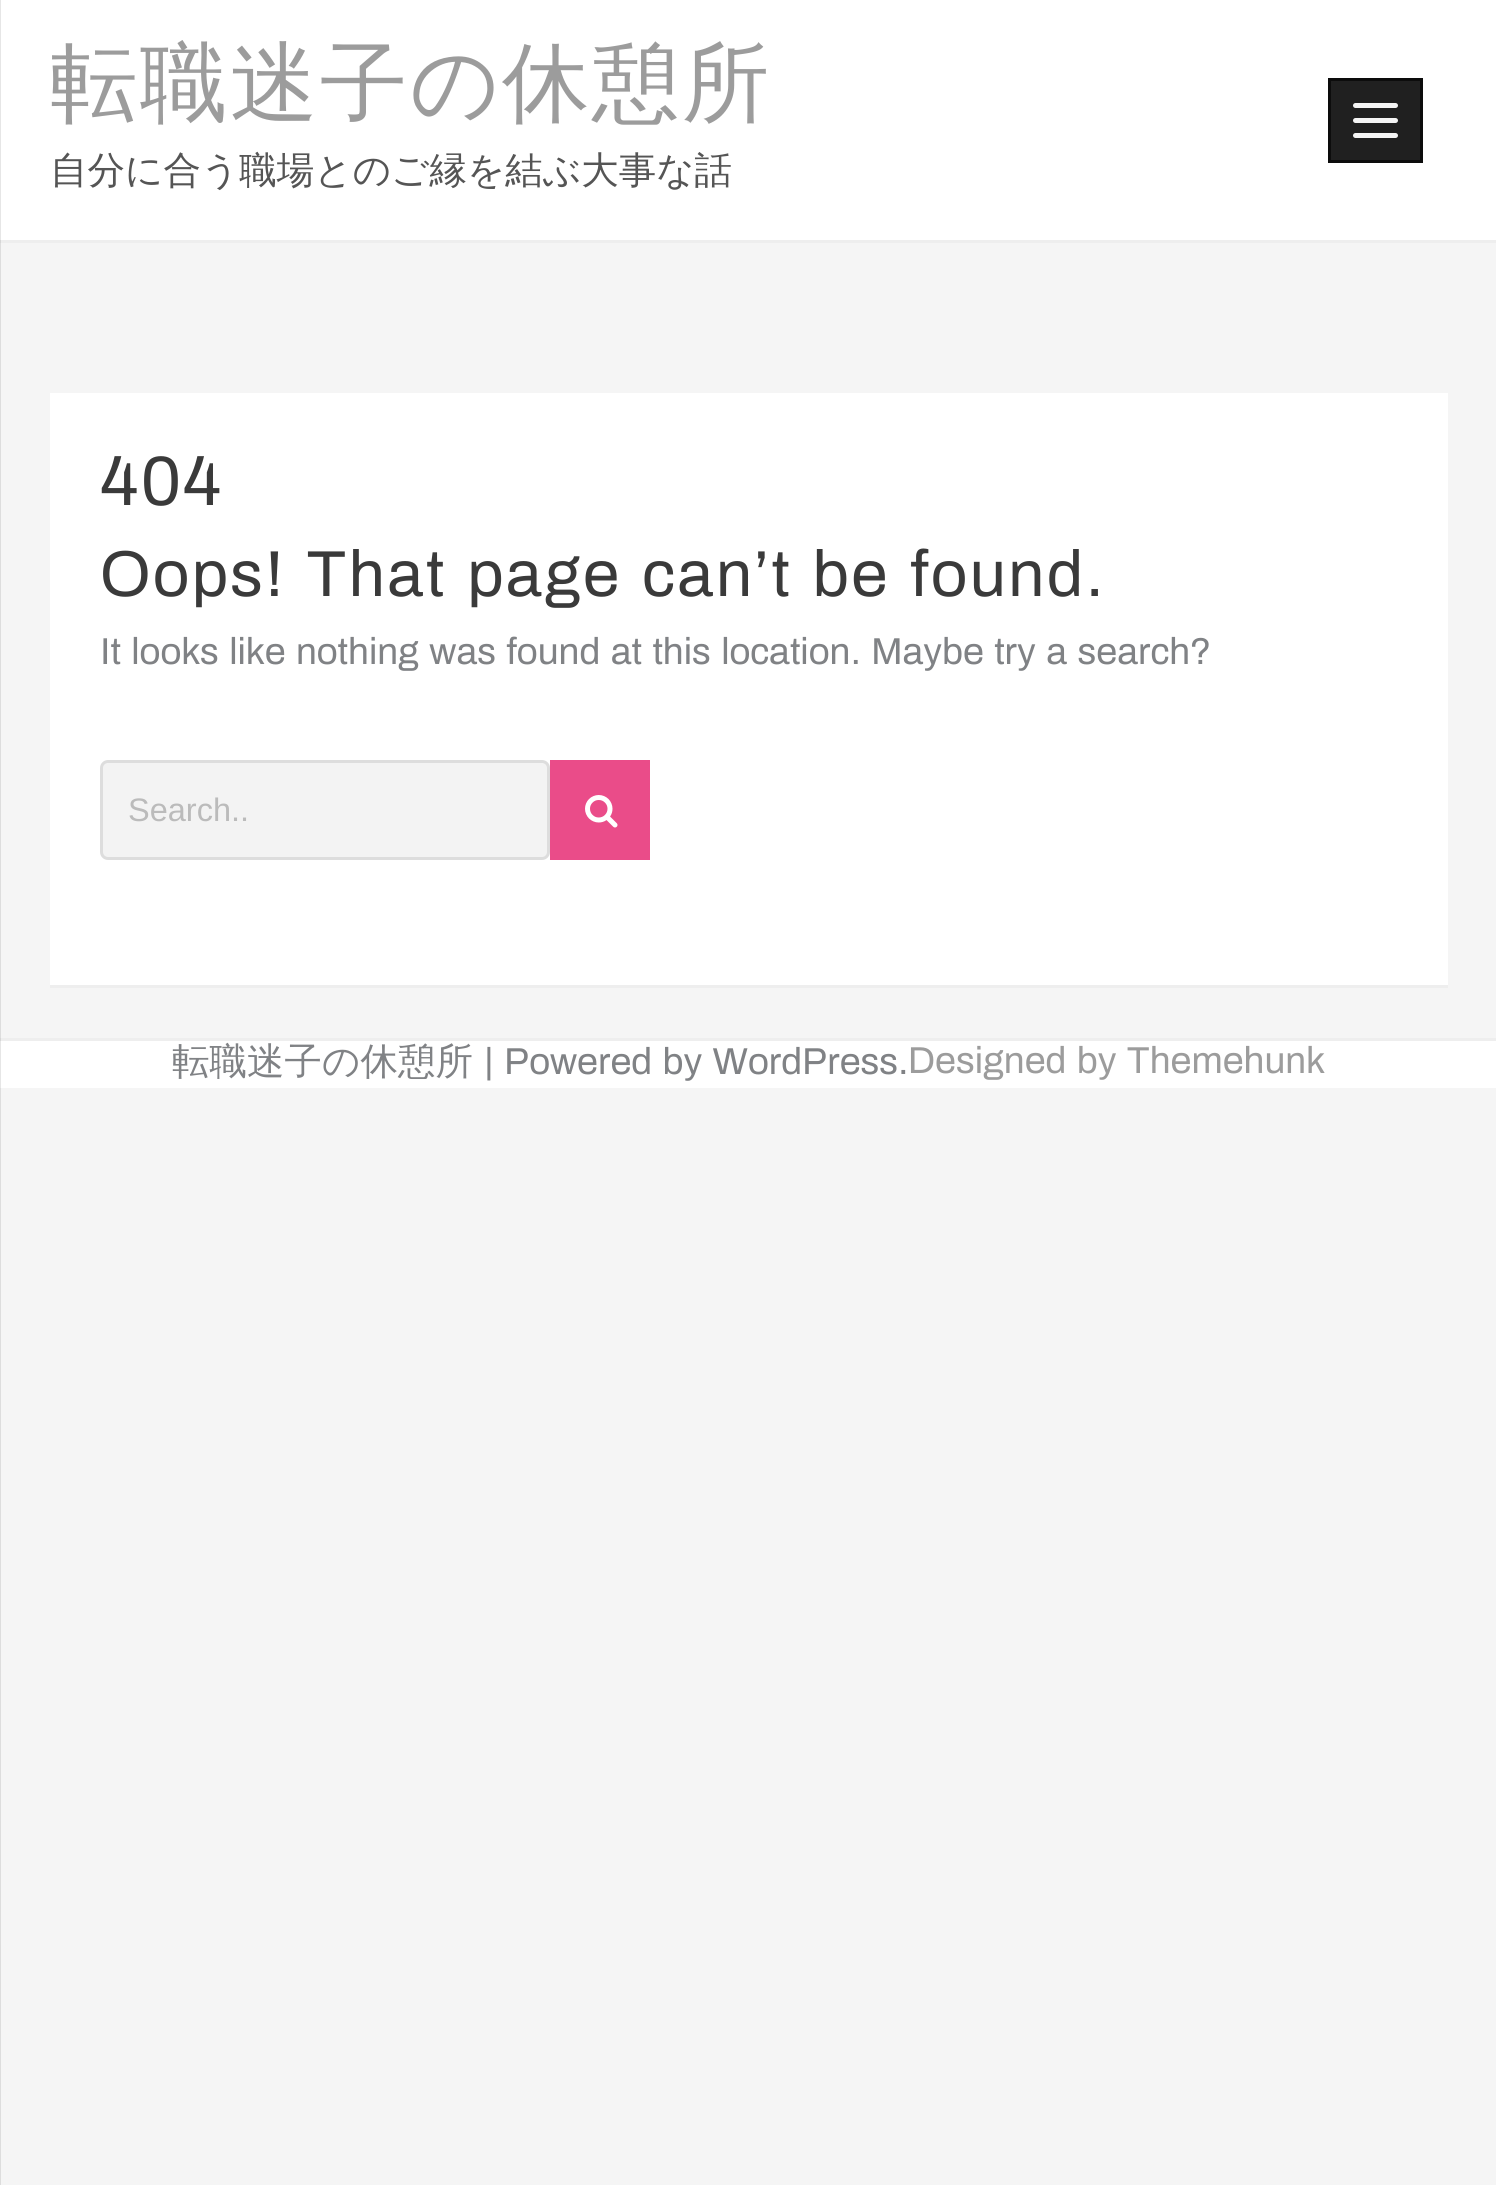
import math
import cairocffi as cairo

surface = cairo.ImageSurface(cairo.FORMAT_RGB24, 1496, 2185)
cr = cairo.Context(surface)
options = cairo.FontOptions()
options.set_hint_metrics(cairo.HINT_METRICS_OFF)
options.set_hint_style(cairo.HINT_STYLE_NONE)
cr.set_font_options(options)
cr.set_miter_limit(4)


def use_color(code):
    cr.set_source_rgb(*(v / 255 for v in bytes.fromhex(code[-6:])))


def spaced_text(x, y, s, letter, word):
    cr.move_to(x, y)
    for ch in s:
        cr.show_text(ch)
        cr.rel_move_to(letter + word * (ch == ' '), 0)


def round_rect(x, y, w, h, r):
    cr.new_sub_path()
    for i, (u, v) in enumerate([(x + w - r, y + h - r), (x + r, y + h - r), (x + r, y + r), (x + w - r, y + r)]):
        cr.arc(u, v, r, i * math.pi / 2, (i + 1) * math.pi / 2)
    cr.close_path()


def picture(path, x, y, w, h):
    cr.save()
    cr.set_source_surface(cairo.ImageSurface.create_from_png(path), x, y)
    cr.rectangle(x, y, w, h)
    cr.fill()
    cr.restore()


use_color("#f5f5f5")
cr.paint()
use_color("#dddddd")
cr.rectangle(0, 243, 1, 1942)
cr.fill()
use_color("#ffffff")
cr.rectangle(1, 0, 1495, 240)
cr.fill()
use_color("#e6e6e6")
cr.rectangle(0, 0, 1, 243)
cr.fill()
use_color("#eeeeee")
cr.rectangle(0, 240, 1496, 3)
cr.fill()
use_color("#d6d6d6")
cr.rectangle(0, 240, 1, 3)
cr.fill()
cr.select_font_face("WenQuanYi Zen Hei Medium")
cr.set_font_size(87.5)
use_color("#9c9c9c")
spaced_text(50, 113, "転職迷子の休憩所", 2.5, 0)
cr.set_font_size(37.5)
use_color("#555555")
cr.move_to(50, 183)
cr.show_text("自分に合う職場とのご縁を結ぶ大事な話")
use_color("#202020")
cr.rectangle(1329.5, 79.5, 92, 82)
cr.fill_preserve()
use_color("#0c0c0c")
cr.set_line_width(3)
cr.stroke()
use_color("#f5f5f5")
round_rect(1353, 103, 45, 5, 2.5)
cr.fill()
round_rect(1353, 118, 45, 5, 2.5)
cr.fill()
round_rect(1353, 133, 45, 5, 2.5)
cr.fill()
use_color("#eeeeee")
cr.rectangle(50, 985, 1398, 3)
cr.fill()
use_color("#ffffff")
cr.rectangle(50, 393, 1398, 592)
cr.fill()
cr.select_font_face("Archivo")
cr.set_font_size(70)
use_color("#3a3a3a")
spaced_text(100, 505, "404", 2.5, 0)
cr.set_font_size(65)
spaced_text(100, 596, "Oops! That page can’t be found.", 2.5, 0)
cr.set_font_size(37.5)
use_color("#808285")
cr.move_to(100, 664)
cr.show_text("It looks like nothing was found at this location. Maybe try a search?")
use_color("#f3f3f3")
round_rect(101.5, 761.5, 447, 97, 6.5)
cr.fill_preserve()
use_color("#dddddd")
cr.stroke()
cr.select_font_face("Liberation Sans")
cr.set_font_size(32.5)
use_color("#bbbbbb")
cr.move_to(128, 821)
cr.show_text("Search..")
use_color("#ea4c89")
cr.rectangle(550, 760, 100, 100)
cr.fill()
picture("img1.png", 585, 795, 33, 33)
use_color("#ffffff")
cr.rectangle(1, 1041, 1495, 47)
cr.fill()
use_color("#e6e6e6")
cr.rectangle(0, 1038, 1, 50)
cr.fill()
use_color("#eeeeee")
cr.rectangle(0, 1038, 1496, 3)
cr.fill()
use_color("#d6d6d6")
cr.rectangle(0, 1038, 1, 3)
cr.fill()
cr.select_font_face("WenQuanYi Zen Hei Medium")
cr.set_font_size(37.5)
use_color("#808285")
cr.move_to(172, 1074)
cr.show_text("転職迷子の休憩所")
cr.select_font_face("Archivo")
cr.move_to(484, 1074)
cr.show_text("| Powered by WordPress.")
use_color("#9c9c9c")
cr.move_to(908, 1073)
cr.show_text("Designed by Themehunk")
surface.write_to_png("result.png")
